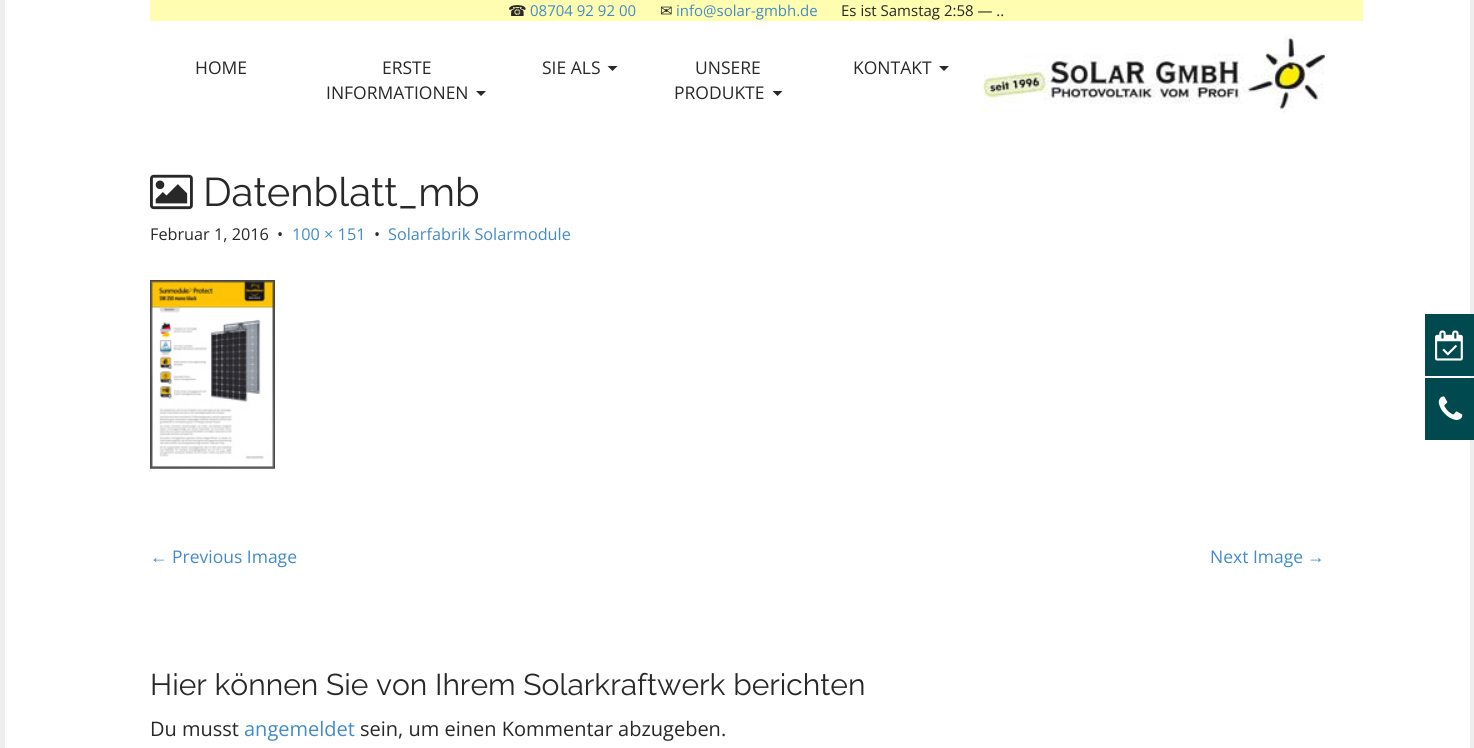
import math
import cairocffi as cairo

surface = cairo.ImageSurface(cairo.FORMAT_RGB24, 1474, 748)
cr = cairo.Context(surface)
options = cairo.FontOptions()
options.set_hint_metrics(cairo.HINT_METRICS_OFF)
options.set_hint_style(cairo.HINT_STYLE_NONE)
cr.set_font_options(options)
cr.set_miter_limit(4)


def use_color(code):
    cr.set_source_rgb(*(v / 255 for v in bytes.fromhex(code[-6:])))


def picture(path, x, y, w, h):
    cr.save()
    cr.set_source_surface(cairo.ImageSurface.create_from_png(path), x, y)
    cr.rectangle(x, y, w, h)
    cr.fill()
    cr.restore()


use_color("#eeeeee")
cr.paint()
use_color("#ffffff")
cr.rectangle(5, 0, 1465, 748)
cr.fill()
use_color("#fffeb0")
cr.rectangle(150, 0, 1213, 21)
cr.fill()
cr.select_font_face("DejaVu Sans")
cr.set_font_size(15)
use_color("#282828")
cr.move_to(508, 16)
cr.show_text("☎")
cr.select_font_face("Open Sans")
use_color("#428bca")
cr.move_to(530, 16)
cr.show_text("08704 92 92 00")
cr.select_font_face("DejaVu Sans")
use_color("#282828")
cr.move_to(660, 16)
cr.show_text("✉")
cr.select_font_face("Open Sans")
use_color("#428bca")
cr.move_to(676, 16)
cr.show_text("info@solar-gmbh.de")
use_color("#282828")
cr.move_to(841, 16)
cr.show_text("Es ist Samstag 2:58 — ..")
cr.set_font_size(17.5)
cr.move_to(195, 74)
cr.show_text("HOME")
cr.move_to(382, 74)
cr.show_text("ERSTE")
cr.move_to(326, 99)
cr.show_text("INFORMATIONEN")
cr.new_path()
cr.move_to(476, 91)
cr.line_to(486, 91)
cr.line_to(481, 96)
cr.close_path()
cr.fill()
cr.move_to(542, 74)
cr.show_text("SIE ALS")
cr.new_path()
cr.move_to(607.5, 66)
cr.line_to(617.5, 66)
cr.line_to(612.5, 71)
cr.close_path()
cr.fill()
cr.move_to(695, 74)
cr.show_text("UNSERE")
cr.move_to(674, 99)
cr.show_text("PRODUKTE")
cr.new_path()
cr.move_to(772.5, 91)
cr.line_to(782.5, 91)
cr.line_to(777.5, 96)
cr.close_path()
cr.fill()
cr.move_to(853, 74)
cr.show_text("KONTAKT")
cr.new_path()
cr.move_to(939, 66)
cr.line_to(949, 66)
cr.line_to(944, 71)
cr.close_path()
cr.fill()
picture("img1.png", 983, 34, 342, 79)
picture("img2.png", 150, 174, 43, 36)
cr.select_font_face("Raleway Thin")
cr.set_font_size(40)
cr.move_to(203, 206)
cr.show_text("Datenblatt_mb")
cr.select_font_face("Open Sans")
cr.set_font_size(16.25)
cr.move_to(150, 240)
cr.show_text("Februar 1, 2016")
cr.move_to(277, 240)
cr.show_text("•")
use_color("#428bca")
cr.move_to(292, 240)
cr.show_text("100 × 151")
use_color("#282828")
cr.move_to(374, 240)
cr.show_text("•")
use_color("#428bca")
cr.move_to(388, 240)
cr.show_text("Solarfabrik Solarmodule")
picture("img3.png", 150, 280, 125, 189)
cr.select_font_face("Liberation Sans")
cr.set_font_size(17.5)
cr.move_to(150, 563)
cr.show_text("←")
cr.select_font_face("Open Sans")
cr.move_to(172, 563)
cr.show_text("Previous Image")
cr.move_to(1210, 563)
cr.show_text("Next Image")
cr.select_font_face("Liberation Sans")
cr.move_to(1307, 563)
cr.show_text("→")
cr.select_font_face("Raleway Thin")
cr.set_font_size(30)
use_color("#282828")
cr.move_to(150, 695)
cr.show_text("Hier können Sie von Ihrem Solarkraftwerk berichten")
cr.select_font_face("Open Sans")
cr.set_font_size(20)
cr.move_to(150, 736)
cr.show_text("Du musst")
use_color("#428bca")
cr.move_to(244, 736)
cr.show_text("angemeldet")
use_color("#282828")
cr.move_to(360, 736)
cr.show_text("sein, um einen Kommentar abzugeben.")
use_color("#00494f")
cr.rectangle(1425, 314, 49, 62)
cr.fill()
picture("img4.png", 1435, 330, 28, 31)
cr.rectangle(1425, 378, 49, 62)
cr.fill()
picture("img5.png", 1438, 396, 25, 24)
surface.write_to_png("result.png")
